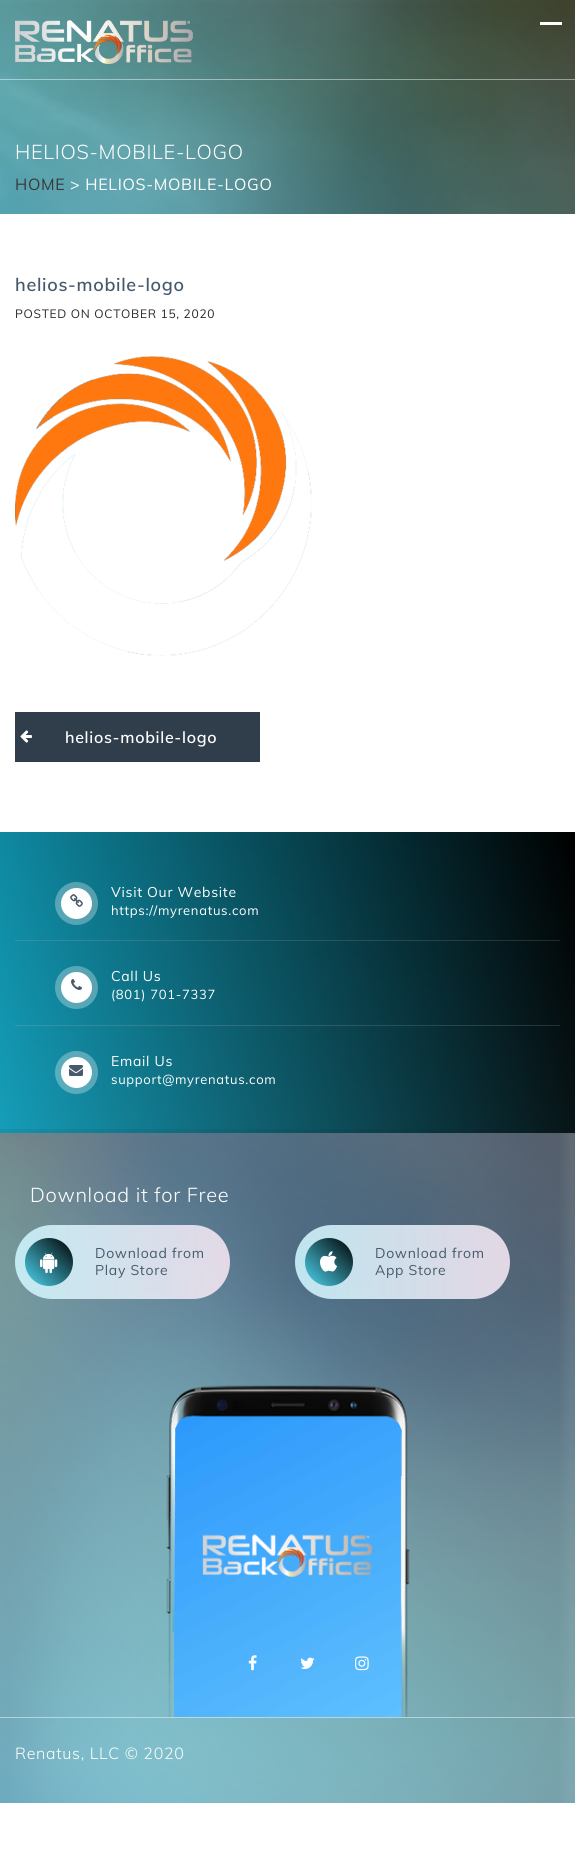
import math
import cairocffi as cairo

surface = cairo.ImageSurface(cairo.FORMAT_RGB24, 575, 1855)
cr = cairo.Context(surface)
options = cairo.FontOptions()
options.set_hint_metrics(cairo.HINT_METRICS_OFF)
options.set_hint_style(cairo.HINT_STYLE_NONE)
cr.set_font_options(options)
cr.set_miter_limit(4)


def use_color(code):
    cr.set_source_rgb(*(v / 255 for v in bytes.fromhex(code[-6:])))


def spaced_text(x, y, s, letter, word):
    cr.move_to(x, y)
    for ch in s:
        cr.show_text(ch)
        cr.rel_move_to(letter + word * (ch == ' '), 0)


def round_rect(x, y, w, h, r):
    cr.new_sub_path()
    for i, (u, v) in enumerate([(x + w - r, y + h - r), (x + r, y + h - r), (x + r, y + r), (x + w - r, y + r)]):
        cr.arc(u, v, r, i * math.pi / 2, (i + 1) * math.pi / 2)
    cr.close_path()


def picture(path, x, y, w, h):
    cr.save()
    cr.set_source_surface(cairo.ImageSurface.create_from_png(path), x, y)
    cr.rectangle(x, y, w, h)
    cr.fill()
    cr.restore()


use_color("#ffffff")
cr.paint()
picture("img2.png", 0, 0, 575, 214)
cr.set_source_rgba(1, 1, 1, 0.46)
cr.rectangle(0, 79, 575, 1)
cr.fill()
picture("img1.png", 15, 20, 178, 44)
use_color("#ffffff")
cr.rectangle(540, 22, 22, 3)
cr.fill()
cr.select_font_face("Muli Light")
cr.set_font_size(20)
spaced_text(15, 159, "HELIOS-MOBILE-LOGO", 0.7, 0)
cr.select_font_face("Muli")
cr.set_font_size(16)
use_color("#383838")
spaced_text(15, 190, "HOME", 0.7, 0)
use_color("#ffffff")
spaced_text(70, 190, "> HELIOS-MOBILE-LOGO", 0.7, 0)
cr.select_font_face("Muli SemiBold")
cr.set_font_size(18)
use_color("#475a6c")
spaced_text(15, 291, "helios-mobile-logo", 0.7, 0)
cr.select_font_face("Muli")
cr.set_font_size(12)
use_color("#25282b")
spaced_text(15, 318, "POSTED ON OCTOBER 15, 2020", 0.7, 0)
picture("img3.png", 15, 356, 297, 300)
use_color("#303e4b")
cr.rectangle(15, 712, 245, 50)
cr.fill()
picture("img4.png", 20, 730, 12, 13)
cr.select_font_face("Muli SemiBold")
cr.set_font_size(16)
use_color("#ffffff")
spaced_text(65, 743, "helios-mobile-logo", 0.7, 0)
picture("img5.png", 0, 1133, 575, 670)
gradient = cairo.LinearGradient(0, 981, 575, 981)
gradient.add_color_stop_rgba(0, 0, 0.761, 0.914, 1)
gradient.add_color_stop_rgba(1, 0, 0, 0, 1)
cr.set_source(gradient)
cr.rectangle(0, 832, 575, 301)
cr.fill()
cr.set_source_rgba(0, 0, 0, 0.1)
cr.rectangle(0, 1129, 512, 4)
cr.fill()
cr.set_source_rgba(1, 1, 1, 0.25)
cr.rectangle(15, 940, 545, 1)
cr.fill()
cr.rectangle(15, 1025, 545, 1)
cr.fill()
gradient = cairo.LinearGradient(-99, 1704, 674, 931)
gradient.add_color_stop_rgba(0, 0.298, 0.835, 0.941, 0.5)
gradient.add_color_stop_rgba(1, 0, 0, 0, 0.5)
cr.set_source(gradient)
cr.rectangle(0, 832, 575, 971)
cr.fill()
use_color("#ffffff")
cr.arc(76.5, 903.5, 15.5, 0, 2 * math.pi)
cr.fill()
cr.set_source_rgba(1, 1, 1, 0.3)
cr.arc(76.5, 903.5, 21.5, 0, 2 * math.pi)
cr.fill()
picture("img6.png", 70, 894, 13, 13)
cr.select_font_face("Muli")
cr.set_font_size(14)
use_color("#ffffff")
spaced_text(111, 897, "Visit Our Website", 0.7, 0)
cr.set_font_size(13)
spaced_text(111, 915, "https://myrenatus.com", 0.7, 0)
cr.new_path()
cr.arc(76.5, 987.5, 15.5, 0, 2 * math.pi)
cr.fill()
cr.set_source_rgba(1, 1, 1, 0.3)
cr.arc(76.5, 987.5, 21.5, 0, 2 * math.pi)
cr.fill()
picture("img7.png", 71, 979, 11, 11)
cr.set_font_size(14)
use_color("#ffffff")
spaced_text(111, 981, "Call Us", 0.7, 0)
cr.set_font_size(13)
spaced_text(111, 999, "(801) 701-7337", 0.7, 0)
cr.new_path()
cr.arc(76.5, 1072.5, 15.5, 0, 2 * math.pi)
cr.fill()
cr.set_source_rgba(1, 1, 1, 0.3)
cr.arc(76.5, 1072.5, 21.5, 0, 2 * math.pi)
cr.fill()
picture("img8.png", 69, 1065, 14, 11)
cr.set_font_size(14)
use_color("#ffffff")
spaced_text(111, 1066, "Email Us", 0.7, 0)
cr.set_font_size(13)
spaced_text(111, 1084, "support@myrenatus.com", 0.7, 0)
cr.select_font_face("Muli Light")
cr.set_font_size(20)
spaced_text(30, 1202, "Download it for Free", 0.7, 0)
gradient = cairo.LinearGradient(15, 1262, 230, 1262)
gradient.add_color_stop_rgba(0, 0.8, 0.953, 0.984, 0.9)
gradient.add_color_stop_rgba(1, 0.953, 0.894, 0.941, 0.9)
cr.set_source(gradient)
round_rect(15, 1225, 215, 74, 37)
cr.fill()
gradient = cairo.LinearGradient(25, 1286, 73, 1238)
gradient.add_color_stop_rgba(0, 0.298, 0.835, 0.941, 1)
gradient.add_color_stop_rgba(1, 0, 0, 0, 1)
cr.set_source(gradient)
cr.arc(49, 1262, 24, 0, 2 * math.pi)
cr.fill()
picture("img9.png", 40, 1252, 18, 22)
cr.select_font_face("Muli")
cr.set_font_size(14)
use_color("#475a6c")
spaced_text(95, 1258, "Download from", 0.7, 0)
spaced_text(95, 1275, "Play Store", 0.7, 0)
gradient = cairo.LinearGradient(295, 1262, 510, 1262)
gradient.add_color_stop_rgba(0, 0.8, 0.953, 0.984, 0.9)
gradient.add_color_stop_rgba(1, 0.953, 0.894, 0.941, 0.9)
cr.set_source(gradient)
round_rect(295, 1225, 215, 74, 37)
cr.fill()
gradient = cairo.LinearGradient(305, 1286, 353, 1238)
gradient.add_color_stop_rgba(0, 0.298, 0.835, 0.941, 1)
gradient.add_color_stop_rgba(1, 0, 0, 0, 1)
cr.set_source(gradient)
cr.arc(329, 1262, 24, 0, 2 * math.pi)
cr.fill()
picture("img10.png", 320, 1251, 17, 21)
use_color("#475a6c")
spaced_text(375, 1258, "Download from", 0.7, 0)
spaced_text(375, 1275, "App Store", 0.7, 0)
picture("img11.png", 166, 1385, 244, 332)
picture("img12.png", 248, 1655, 9, 16)
picture("img13.png", 300, 1657, 15, 12)
picture("img14.png", 355, 1656, 14, 15)
cr.set_source_rgba(1, 1, 1, 0.46)
cr.rectangle(0, 1717, 575, 1)
cr.fill()
cr.select_font_face("Muli Light")
cr.set_font_size(16)
use_color("#ffffff")
spaced_text(15, 1759, "Renatus, LLC © 2020", 0.7, 0)
surface.write_to_png("result.png")
